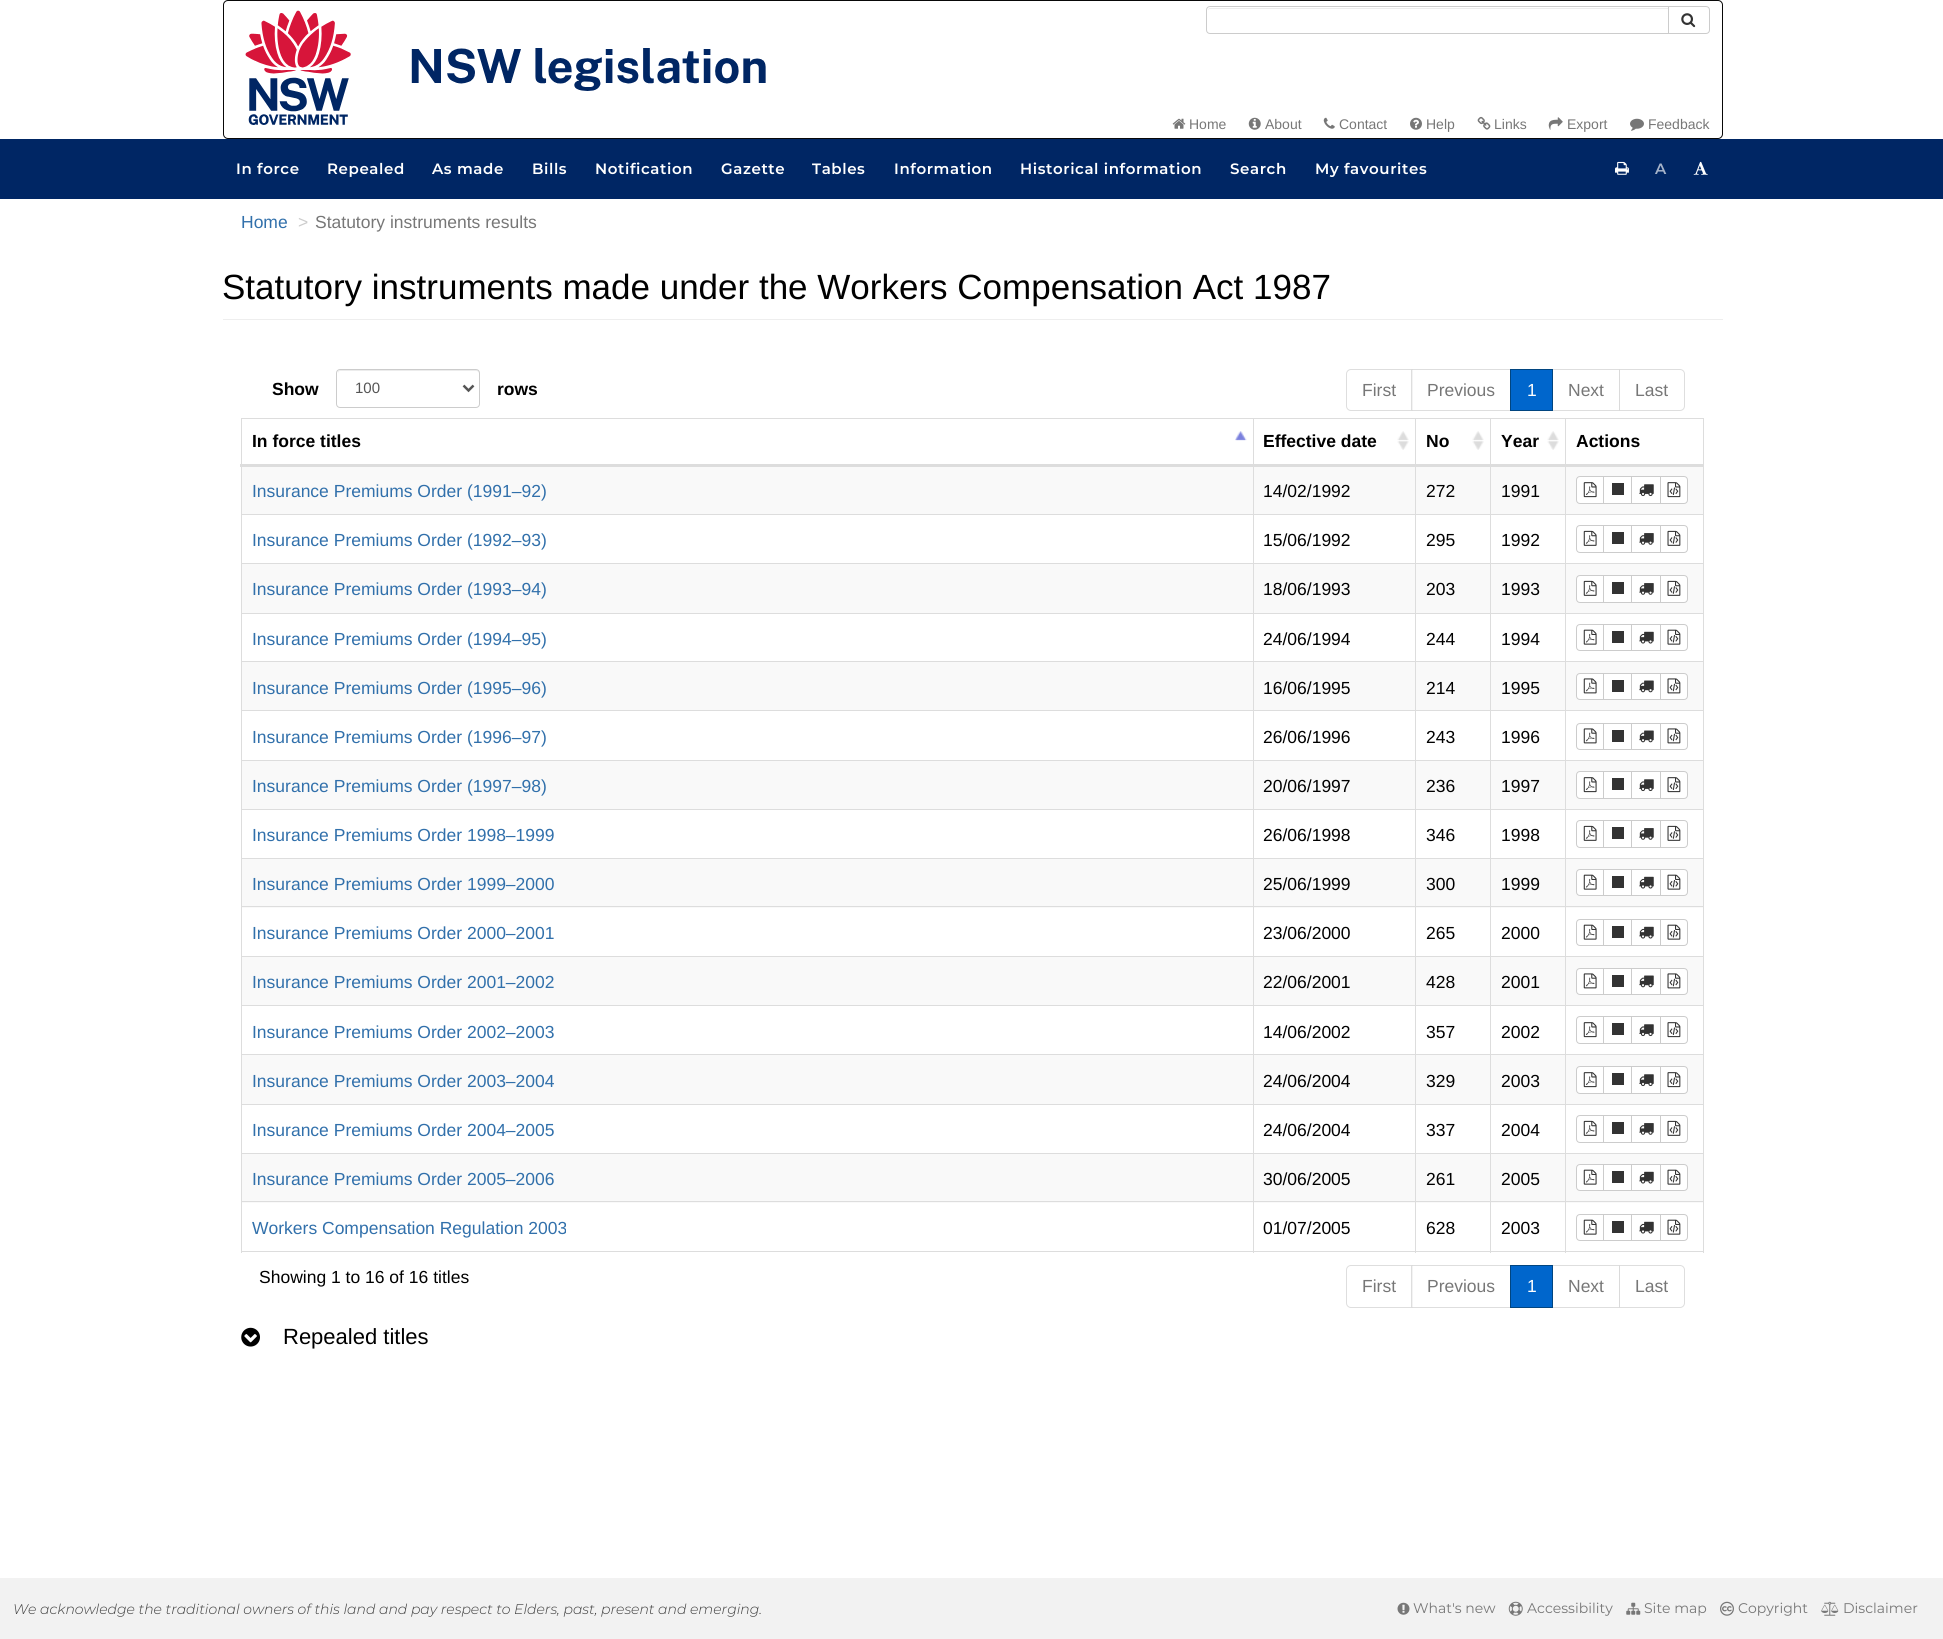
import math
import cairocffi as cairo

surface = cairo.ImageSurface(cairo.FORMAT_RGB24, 1943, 1639)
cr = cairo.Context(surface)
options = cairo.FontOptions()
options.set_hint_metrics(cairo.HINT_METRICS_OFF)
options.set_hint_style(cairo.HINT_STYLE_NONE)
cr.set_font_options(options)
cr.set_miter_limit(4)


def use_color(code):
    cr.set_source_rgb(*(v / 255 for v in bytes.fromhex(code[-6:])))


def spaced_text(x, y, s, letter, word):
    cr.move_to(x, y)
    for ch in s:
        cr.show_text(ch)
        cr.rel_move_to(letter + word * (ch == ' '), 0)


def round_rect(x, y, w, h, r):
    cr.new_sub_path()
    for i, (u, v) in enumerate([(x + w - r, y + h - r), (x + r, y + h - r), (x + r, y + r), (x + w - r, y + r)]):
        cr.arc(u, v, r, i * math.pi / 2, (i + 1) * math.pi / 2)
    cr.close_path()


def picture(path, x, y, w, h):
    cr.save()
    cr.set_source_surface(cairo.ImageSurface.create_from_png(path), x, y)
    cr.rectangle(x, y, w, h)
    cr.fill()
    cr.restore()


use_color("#ffffff")
cr.paint()
round_rect(223.5, 0.5, 1499, 138, 4.5)
use_color("#080808")
cr.set_line_width(1)
cr.stroke()
picture("img1.png", 245, 10, 521, 115)
cr.new_path()
cr.move_to(1668.5, 6.5)
cr.line_to(1706, 6.5)
cr.curve_to(1708, 6.5, 1709.5, 8, 1709.5, 10)
cr.line_to(1709.5, 30)
cr.curve_to(1709.5, 32, 1708, 33.5, 1706, 33.5)
cr.line_to(1668.5, 33.5)
cr.close_path()
use_color("#cccccc")
cr.stroke()
use_color("#ffffff")
cr.new_path()
cr.move_to(1210, 6)
cr.line_to(1669, 6)
cr.line_to(1669, 34)
cr.line_to(1210, 34)
cr.curve_to(1208, 34, 1206, 32, 1206, 30)
cr.line_to(1206, 10)
cr.curve_to(1206, 8, 1208, 6, 1210, 6)
cr.close_path()
cr.fill()
use_color("#ececec")
cr.new_path()
cr.move_to(1210, 9)
cr.line_to(1668, 9)
cr.line_to(1668, 8)
cr.line_to(1210, 8)
cr.curve_to(1209, 8, 1208, 9, 1208, 11)
cr.curve_to(1208, 10, 1209, 9, 1210, 9)
cr.close_path()
cr.fill()
cr.new_path()
cr.move_to(1210, 6.5)
cr.line_to(1668.5, 6.5)
cr.line_to(1668.5, 33.5)
cr.line_to(1210, 33.5)
cr.curve_to(1208, 33.5, 1206.5, 32, 1206.5, 30)
cr.line_to(1206.5, 10)
cr.curve_to(1206.5, 8, 1208, 6.5, 1210, 6.5)
cr.close_path()
use_color("#cccccc")
cr.stroke()
picture("img2.png", 1681, 13, 15, 15)
picture("img3.png", 1172, 118, 14, 11)
cr.select_font_face("Liberation Sans")
cr.set_font_size(14)
use_color("#777777")
cr.move_to(1189, 129)
cr.show_text("Home")
picture("img4.png", 1248, 117, 13, 13)
cr.move_to(1265, 129)
cr.show_text("About")
picture("img5.png", 1323, 117, 12, 12)
cr.move_to(1339, 129)
cr.show_text("Contact")
picture("img6.png", 1410, 117, 12, 13)
cr.move_to(1426, 129)
cr.show_text("Help")
picture("img7.png", 1477, 116, 14, 14)
cr.move_to(1494, 129)
cr.show_text("Links")
picture("img8.png", 1548, 117, 15, 13)
cr.move_to(1567, 129)
cr.show_text("Export")
picture("img9.png", 1630, 118, 14, 13)
cr.move_to(1648, 129)
cr.show_text("Feedback")
use_color("#002664")
cr.rectangle(0, 139, 1943, 60)
cr.fill()
cr.select_font_face("Montserrat SemiBold")
cr.set_font_size(15)
use_color("#ffffff")
spaced_text(236, 174, "In force", 0.6, 0)
spaced_text(327, 174, "Repealed", 0.6, 0)
spaced_text(432, 174, "As made", 0.6, 0)
spaced_text(532, 174, "Bills", 0.6, 0)
spaced_text(595, 174, "Notification", 0.6, 0)
spaced_text(721, 174, "Gazette", 0.6, 0)
spaced_text(812, 174, "Tables", 0.6, 0)
spaced_text(894, 174, "Information", 0.6, 0)
spaced_text(1020, 174, "Historical information", 0.6, 0)
spaced_text(1230, 174, "Search", 0.6, 0)
spaced_text(1315, 174, "My favourites", 0.6, 0)
picture("img10.png", 1615, 161, 14, 14)
use_color("#a6b3c9")
spaced_text(1655, 174, "A", 0.6, 0)
picture("img11.png", 1693, 161, 15, 14)
cr.select_font_face("Liberation Sans")
cr.set_font_size(17.5)
use_color("#3170ab")
cr.move_to(241, 228)
cr.show_text("Home")
use_color("#cccccc")
cr.move_to(298, 228)
cr.show_text(">")
use_color("#777777")
cr.move_to(315, 228)
cr.show_text("Statutory instruments results")
use_color("#eeeeee")
cr.rectangle(223, 319, 1500, 1)
cr.fill()
cr.set_font_size(35)
use_color("#000000")
cr.move_to(222, 299)
cr.show_text("Statutory instruments made under the Workers Compensation Act 1987")
cr.select_font_face("Liberation Sans", cairo.FONT_SLANT_NORMAL, cairo.FONT_WEIGHT_BOLD)
cr.set_font_size(17.5)
cr.move_to(272, 395)
cr.show_text("Show")
use_color("#ececec")
cr.new_path()
cr.move_to(340, 371)
cr.line_to(476, 371)
cr.curve_to(478, 371, 479, 372, 479, 374)
cr.line_to(479, 372)
cr.curve_to(479, 371, 478, 370, 476, 370)
cr.line_to(340, 370)
cr.curve_to(339, 370, 338, 371, 338, 372)
cr.line_to(338, 374)
cr.curve_to(338, 372, 339, 371, 340, 371)
cr.close_path()
cr.fill()
round_rect(336.5, 369.5, 143, 38, 3.5)
use_color("#cccccc")
cr.stroke()
cr.new_path()
cr.move_to(463.5, 385.5)
cr.line_to(468.5, 390.5)
cr.line_to(473.5, 385.5)
use_color("#555555")
cr.set_line_width(2.5)
cr.stroke()
cr.select_font_face("Liberation Sans")
cr.set_font_size(15)
cr.move_to(355, 393)
cr.show_text("100")
cr.select_font_face("Liberation Sans", cairo.FONT_SLANT_NORMAL, cairo.FONT_WEIGHT_BOLD)
cr.set_font_size(17.5)
use_color("#000000")
cr.move_to(497, 395)
cr.show_text("rows")
cr.new_path()
cr.move_to(1351, 369.5)
cr.line_to(1412.5, 369.5)
cr.line_to(1412.5, 410.5)
cr.line_to(1351, 410.5)
cr.curve_to(1348.5, 410.5, 1346.5, 408.5, 1346.5, 406)
cr.line_to(1346.5, 374)
cr.curve_to(1346.5, 371.5, 1348.5, 369.5, 1351, 369.5)
cr.close_path()
use_color("#dedede")
cr.set_line_width(1)
cr.stroke()
cr.select_font_face("Liberation Sans")
use_color("#777777")
cr.move_to(1362, 396)
cr.show_text("First")
cr.set_source_rgba(1, 1, 1, 0.65)
cr.rectangle(1411, 369, 2, 42)
cr.fill()
cr.rectangle(1411.5, 369.5, 99, 41)
cr.set_source_rgba(0.8, 0.8, 0.8, 0.65)
cr.stroke()
use_color("#777777")
cr.move_to(1427, 396)
cr.show_text("Previous")
cr.rectangle(1551.5, 369.5, 68, 41)
use_color("#dedede")
cr.stroke()
use_color("#0066cc")
cr.rectangle(1510.5, 369.5, 42, 41)
cr.fill_preserve()
use_color("#014580")
cr.stroke()
use_color("#ffffff")
cr.move_to(1527, 396)
cr.show_text("1")
use_color("#777777")
cr.move_to(1568, 396)
cr.show_text("Next")
cr.set_source_rgba(1, 1, 1, 0.65)
cr.new_path()
cr.move_to(1619, 369)
cr.line_to(1680, 369)
cr.curve_to(1683, 369, 1685, 371, 1685, 374)
cr.line_to(1685, 406)
cr.curve_to(1685, 409, 1683, 411, 1680, 411)
cr.line_to(1619, 411)
cr.close_path()
cr.fill()
cr.new_path()
cr.move_to(1619.5, 369.5)
cr.line_to(1680, 369.5)
cr.curve_to(1682.5, 369.5, 1684.5, 371.5, 1684.5, 374)
cr.line_to(1684.5, 406)
cr.curve_to(1684.5, 408.5, 1682.5, 410.5, 1680, 410.5)
cr.line_to(1619.5, 410.5)
cr.close_path()
cr.set_source_rgba(0.8, 0.8, 0.8, 0.65)
cr.stroke()
use_color("#777777")
cr.move_to(1635, 396)
cr.show_text("Last")
use_color("#dddddd")
cr.rectangle(241, 418, 1463, 1)
cr.fill()
cr.rectangle(1703, 418, 1, 835)
cr.fill()
cr.rectangle(241, 1251, 1463, 1)
cr.fill()
cr.rectangle(241, 418, 1, 835)
cr.fill()
picture("img12.png", 1235, 431, 12, 10)
cr.select_font_face("Liberation Sans", cairo.FONT_SLANT_NORMAL, cairo.FONT_WEIGHT_BOLD)
use_color("#000000")
cr.move_to(252, 447)
cr.show_text("In force titles")
picture("img13.png", 1397, 431, 12, 19)
cr.move_to(1263, 447)
cr.show_text("Effective date")
picture("img13.png", 1472, 431, 12, 19)
cr.move_to(1426, 447)
cr.show_text("No")
picture("img13.png", 1547, 431, 12, 19)
cr.move_to(1501, 447)
cr.show_text("Year")
use_color("#dddddd")
cr.rectangle(1565, 514, 139, 1)
cr.fill()
cr.rectangle(1565, 563, 139, 1)
cr.fill()
cr.rectangle(1565, 613, 139, 1)
cr.fill()
cr.rectangle(1565, 661, 139, 1)
cr.fill()
cr.rectangle(1565, 710, 139, 1)
cr.fill()
cr.rectangle(1565, 760, 139, 1)
cr.fill()
cr.rectangle(1565, 809, 139, 1)
cr.fill()
cr.rectangle(1565, 858, 139, 1)
cr.fill()
use_color("#f9f9f9")
cr.rectangle(1491, 859, 74, 49)
cr.fill()
cr.rectangle(1566, 859, 137, 49)
cr.fill()
use_color("#dddddd")
cr.rectangle(1565, 906, 139, 1)
cr.fill()
cr.rectangle(1565, 956, 139, 1)
cr.fill()
cr.rectangle(1565, 1005, 139, 1)
cr.fill()
cr.rectangle(1565, 1054, 139, 1)
cr.fill()
cr.rectangle(1565, 1104, 139, 1)
cr.fill()
cr.rectangle(1565, 1153, 139, 1)
cr.fill()
use_color("#f9f9f9")
cr.rectangle(1491, 1154, 74, 49)
cr.fill()
cr.rectangle(1566, 1154, 137, 49)
cr.fill()
use_color("#dddddd")
cr.rectangle(1565, 1201, 139, 1)
cr.fill()
cr.rectangle(1565, 1201, 1, 52)
cr.fill()
cr.rectangle(1490, 1201, 76, 1)
cr.fill()
cr.rectangle(1565, 1153, 1, 50)
cr.fill()
cr.rectangle(1490, 1153, 76, 1)
cr.fill()
cr.rectangle(1565, 1104, 1, 50)
cr.fill()
cr.rectangle(1490, 1104, 76, 1)
cr.fill()
cr.rectangle(1565, 1054, 1, 51)
cr.fill()
cr.rectangle(1490, 1054, 76, 1)
cr.fill()
cr.rectangle(1565, 1005, 1, 50)
cr.fill()
cr.rectangle(1490, 1005, 76, 1)
cr.fill()
cr.rectangle(1565, 956, 1, 50)
cr.fill()
cr.rectangle(1490, 956, 76, 1)
cr.fill()
cr.rectangle(1565, 906, 1, 52)
cr.fill()
cr.rectangle(1490, 906, 76, 1)
cr.fill()
cr.rectangle(1565, 858, 1, 50)
cr.fill()
cr.rectangle(1490, 858, 76, 1)
cr.fill()
cr.rectangle(1565, 809, 1, 50)
cr.fill()
cr.rectangle(1490, 809, 76, 1)
cr.fill()
cr.rectangle(1565, 760, 1, 50)
cr.fill()
cr.rectangle(1490, 760, 76, 1)
cr.fill()
cr.rectangle(1565, 710, 1, 51)
cr.fill()
cr.rectangle(1490, 710, 76, 1)
cr.fill()
cr.rectangle(1565, 661, 1, 50)
cr.fill()
cr.rectangle(1490, 661, 76, 1)
cr.fill()
cr.rectangle(1565, 613, 1, 50)
cr.fill()
cr.rectangle(1490, 613, 76, 1)
cr.fill()
cr.rectangle(1565, 563, 1, 51)
cr.fill()
cr.rectangle(1490, 563, 76, 1)
cr.fill()
cr.rectangle(1565, 514, 1, 50)
cr.fill()
cr.rectangle(1490, 514, 76, 1)
cr.fill()
use_color("#f9f9f9")
cr.rectangle(1416, 859, 74, 49)
cr.fill()
cr.rectangle(1416, 1154, 74, 49)
cr.fill()
use_color("#dddddd")
cr.rectangle(1490, 1201, 1, 52)
cr.fill()
cr.rectangle(1415, 1201, 76, 1)
cr.fill()
cr.rectangle(1490, 1153, 1, 50)
cr.fill()
cr.rectangle(1415, 1153, 76, 1)
cr.fill()
cr.rectangle(1490, 1104, 1, 50)
cr.fill()
cr.rectangle(1415, 1104, 76, 1)
cr.fill()
cr.rectangle(1490, 1054, 1, 51)
cr.fill()
cr.rectangle(1415, 1054, 76, 1)
cr.fill()
cr.rectangle(1490, 1005, 1, 50)
cr.fill()
cr.rectangle(1415, 1005, 76, 1)
cr.fill()
cr.rectangle(1490, 956, 1, 50)
cr.fill()
cr.rectangle(1415, 956, 76, 1)
cr.fill()
cr.rectangle(1490, 906, 1, 52)
cr.fill()
cr.rectangle(1415, 906, 76, 1)
cr.fill()
cr.rectangle(1490, 858, 1, 50)
cr.fill()
cr.rectangle(1415, 858, 76, 1)
cr.fill()
cr.rectangle(1490, 809, 1, 50)
cr.fill()
cr.rectangle(1415, 809, 76, 1)
cr.fill()
cr.rectangle(1490, 760, 1, 50)
cr.fill()
cr.rectangle(1415, 760, 76, 1)
cr.fill()
cr.rectangle(1490, 710, 1, 51)
cr.fill()
cr.rectangle(1415, 710, 76, 1)
cr.fill()
cr.rectangle(1490, 661, 1, 50)
cr.fill()
cr.rectangle(1415, 661, 76, 1)
cr.fill()
cr.rectangle(1490, 613, 1, 50)
cr.fill()
cr.rectangle(1415, 613, 76, 1)
cr.fill()
cr.rectangle(1490, 563, 1, 51)
cr.fill()
cr.rectangle(1415, 563, 76, 1)
cr.fill()
cr.rectangle(1490, 514, 1, 50)
cr.fill()
cr.rectangle(1415, 514, 76, 1)
cr.fill()
use_color("#f9f9f9")
cr.rectangle(1254, 859, 161, 49)
cr.fill()
cr.rectangle(1254, 1154, 161, 49)
cr.fill()
use_color("#dddddd")
cr.rectangle(1415, 1201, 1, 52)
cr.fill()
cr.rectangle(1253, 1201, 163, 1)
cr.fill()
cr.rectangle(1415, 1153, 1, 50)
cr.fill()
cr.rectangle(1253, 1153, 163, 1)
cr.fill()
cr.rectangle(1415, 1104, 1, 50)
cr.fill()
cr.rectangle(1253, 1104, 163, 1)
cr.fill()
cr.rectangle(1415, 1054, 1, 51)
cr.fill()
cr.rectangle(1253, 1054, 163, 1)
cr.fill()
cr.rectangle(1415, 1005, 1, 50)
cr.fill()
cr.rectangle(1253, 1005, 163, 1)
cr.fill()
cr.rectangle(1415, 956, 1, 50)
cr.fill()
cr.rectangle(1253, 956, 163, 1)
cr.fill()
cr.rectangle(1415, 906, 1, 52)
cr.fill()
cr.rectangle(1253, 906, 163, 1)
cr.fill()
cr.rectangle(1415, 858, 1, 50)
cr.fill()
cr.rectangle(1253, 858, 163, 1)
cr.fill()
cr.rectangle(1415, 809, 1, 50)
cr.fill()
cr.rectangle(1253, 809, 163, 1)
cr.fill()
cr.rectangle(1415, 760, 1, 50)
cr.fill()
cr.rectangle(1253, 760, 163, 1)
cr.fill()
cr.rectangle(1415, 710, 1, 51)
cr.fill()
cr.rectangle(1253, 710, 163, 1)
cr.fill()
cr.rectangle(1415, 661, 1, 50)
cr.fill()
cr.rectangle(1253, 661, 163, 1)
cr.fill()
cr.rectangle(1415, 613, 1, 50)
cr.fill()
cr.rectangle(1253, 613, 163, 1)
cr.fill()
cr.rectangle(1415, 563, 1, 51)
cr.fill()
cr.rectangle(1253, 563, 163, 1)
cr.fill()
cr.rectangle(1415, 514, 1, 50)
cr.fill()
cr.rectangle(1253, 514, 163, 1)
cr.fill()
use_color("#f9f9f9")
cr.rectangle(242, 859, 1011, 49)
cr.fill()
cr.rectangle(242, 1154, 1011, 49)
cr.fill()
use_color("#dddddd")
cr.rectangle(1253, 1201, 1, 52)
cr.fill()
cr.rectangle(241, 1201, 1013, 1)
cr.fill()
cr.rectangle(1253, 1153, 1, 50)
cr.fill()
cr.rectangle(241, 1153, 1013, 1)
cr.fill()
cr.rectangle(1253, 1104, 1, 50)
cr.fill()
cr.rectangle(241, 1104, 1013, 1)
cr.fill()
cr.rectangle(1253, 1054, 1, 51)
cr.fill()
cr.rectangle(241, 1054, 1013, 1)
cr.fill()
cr.rectangle(1253, 1005, 1, 50)
cr.fill()
cr.rectangle(241, 1005, 1013, 1)
cr.fill()
cr.rectangle(1253, 956, 1, 50)
cr.fill()
cr.rectangle(241, 956, 1013, 1)
cr.fill()
cr.rectangle(1253, 906, 1, 52)
cr.fill()
cr.rectangle(241, 906, 1013, 1)
cr.fill()
cr.rectangle(1253, 858, 1, 50)
cr.fill()
cr.rectangle(241, 858, 1013, 1)
cr.fill()
cr.rectangle(1253, 809, 1, 50)
cr.fill()
cr.rectangle(241, 809, 1013, 1)
cr.fill()
cr.rectangle(1253, 760, 1, 50)
cr.fill()
cr.rectangle(241, 760, 1013, 1)
cr.fill()
cr.rectangle(1253, 710, 1, 51)
cr.fill()
cr.rectangle(241, 710, 1013, 1)
cr.fill()
cr.rectangle(1253, 661, 1, 50)
cr.fill()
cr.rectangle(241, 661, 1013, 1)
cr.fill()
cr.rectangle(1253, 613, 1, 50)
cr.fill()
cr.rectangle(241, 613, 1013, 1)
cr.fill()
cr.rectangle(1253, 563, 1, 51)
cr.fill()
cr.rectangle(241, 563, 1013, 1)
cr.fill()
cr.rectangle(1253, 514, 1, 50)
cr.fill()
cr.rectangle(241, 514, 1013, 1)
cr.fill()
cr.rectangle(1253, 418, 1, 97)
cr.fill()
cr.rectangle(1415, 418, 1, 97)
cr.fill()
cr.rectangle(1490, 418, 1, 97)
cr.fill()
cr.rectangle(1565, 418, 1, 97)
cr.fill()
cr.rectangle(240, 464, 1464, 3)
cr.fill()
use_color("#000000")
cr.move_to(1576, 447)
cr.show_text("Actions")
use_color("#f9f9f9")
cr.rectangle(242, 467, 1011, 47)
cr.fill()
cr.select_font_face("Liberation Sans")
use_color("#3170ab")
cr.move_to(252, 497)
cr.show_text("Insurance Premiums Order (1991–92)")
use_color("#f9f9f9")
cr.rectangle(1254, 467, 161, 47)
cr.fill()
use_color("#000000")
cr.move_to(1263, 497)
cr.show_text("14/02/1992")
use_color("#f9f9f9")
cr.rectangle(1416, 467, 74, 47)
cr.fill()
use_color("#000000")
cr.move_to(1426, 497)
cr.show_text("272")
use_color("#f9f9f9")
cr.rectangle(1491, 467, 74, 47)
cr.fill()
use_color("#000000")
cr.move_to(1501, 497)
cr.show_text("1991")
use_color("#f9f9f9")
cr.rectangle(1566, 467, 137, 47)
cr.fill()
use_color("#ffffff")
cr.new_path()
cr.move_to(1580, 476.5)
cr.line_to(1603.5, 476.5)
cr.line_to(1603.5, 503.5)
cr.line_to(1580, 503.5)
cr.curve_to(1578, 503.5, 1576.5, 502, 1576.5, 500)
cr.line_to(1576.5, 480)
cr.curve_to(1576.5, 478, 1578, 476.5, 1580, 476.5)
cr.close_path()
cr.fill_preserve()
use_color("#cccccc")
cr.stroke()
picture("img14.png", 1583, 482, 14, 16)
use_color("#ffffff")
cr.rectangle(1604, 477, 27, 26)
cr.fill()
cr.rectangle(1603.5, 476.5, 29, 27)
use_color("#cccccc")
cr.stroke()
use_color("#333333")
cr.rectangle(1612, 483, 12, 12)
cr.fill()
use_color("#ffffff")
cr.rectangle(1631.5, 476.5, 29, 27)
cr.fill_preserve()
use_color("#cccccc")
cr.stroke()
picture("img15.png", 1639, 484, 15, 13)
use_color("#ffffff")
cr.new_path()
cr.move_to(1660.5, 476.5)
cr.line_to(1684, 476.5)
cr.curve_to(1686, 476.5, 1687.5, 478, 1687.5, 480)
cr.line_to(1687.5, 500)
cr.curve_to(1687.5, 502, 1686, 503.5, 1684, 503.5)
cr.line_to(1660.5, 503.5)
cr.close_path()
cr.fill_preserve()
use_color("#cccccc")
cr.stroke()
picture("img16.png", 1667, 482, 14, 16)
use_color("#3170ab")
cr.move_to(252, 546)
cr.show_text("Insurance Premiums Order (1992–93)")
use_color("#000000")
cr.move_to(1263, 546)
cr.show_text("15/06/1992")
cr.move_to(1426, 546)
cr.show_text("295")
cr.move_to(1501, 546)
cr.show_text("1992")
cr.new_path()
cr.move_to(1580, 525.5)
cr.line_to(1603.5, 525.5)
cr.line_to(1603.5, 552.5)
cr.line_to(1580, 552.5)
cr.curve_to(1578, 552.5, 1576.5, 551, 1576.5, 549)
cr.line_to(1576.5, 529)
cr.curve_to(1576.5, 527, 1578, 525.5, 1580, 525.5)
cr.close_path()
use_color("#cccccc")
cr.stroke()
picture("img17.png", 1583, 530, 14, 16)
cr.rectangle(1603.5, 525.5, 29, 27)
cr.stroke()
use_color("#333333")
cr.rectangle(1612, 532, 12, 12)
cr.fill()
use_color("#ffffff")
cr.rectangle(1632, 526, 1, 26)
cr.fill()
cr.rectangle(1631.5, 525.5, 29, 27)
use_color("#cccccc")
cr.stroke()
picture("img18.png", 1639, 533, 15, 12)
use_color("#ffffff")
cr.new_path()
cr.move_to(1660.5, 525.5)
cr.line_to(1684, 525.5)
cr.curve_to(1686, 525.5, 1687.5, 527, 1687.5, 529)
cr.line_to(1687.5, 549)
cr.curve_to(1687.5, 551, 1686, 552.5, 1684, 552.5)
cr.line_to(1660.5, 552.5)
cr.close_path()
cr.fill_preserve()
use_color("#cccccc")
cr.stroke()
picture("img19.png", 1667, 530, 14, 16)
use_color("#f9f9f9")
cr.rectangle(242, 564, 1011, 49)
cr.fill()
use_color("#3170ab")
cr.move_to(252, 595)
cr.show_text("Insurance Premiums Order (1993–94)")
use_color("#f9f9f9")
cr.rectangle(1254, 564, 161, 49)
cr.fill()
use_color("#000000")
cr.move_to(1263, 595)
cr.show_text("18/06/1993")
use_color("#f9f9f9")
cr.rectangle(1416, 564, 74, 49)
cr.fill()
use_color("#000000")
cr.move_to(1426, 595)
cr.show_text("203")
use_color("#f9f9f9")
cr.rectangle(1491, 564, 74, 49)
cr.fill()
use_color("#000000")
cr.move_to(1501, 595)
cr.show_text("1993")
use_color("#f9f9f9")
cr.rectangle(1566, 564, 137, 49)
cr.fill()
use_color("#ffffff")
cr.new_path()
cr.move_to(1580, 575.5)
cr.line_to(1603.5, 575.5)
cr.line_to(1603.5, 602.5)
cr.line_to(1580, 602.5)
cr.curve_to(1578, 602.5, 1576.5, 601, 1576.5, 599)
cr.line_to(1576.5, 579)
cr.curve_to(1576.5, 577, 1578, 575.5, 1580, 575.5)
cr.close_path()
cr.fill_preserve()
use_color("#cccccc")
cr.stroke()
picture("img17.png", 1583, 580, 14, 16)
use_color("#ffffff")
cr.rectangle(1604, 576, 27, 26)
cr.fill()
cr.rectangle(1603.5, 575.5, 29, 27)
use_color("#cccccc")
cr.stroke()
use_color("#333333")
cr.rectangle(1612, 582, 12, 12)
cr.fill()
use_color("#ffffff")
cr.rectangle(1631.5, 575.5, 29, 27)
cr.fill_preserve()
use_color("#cccccc")
cr.stroke()
picture("img18.png", 1639, 583, 15, 12)
use_color("#ffffff")
cr.new_path()
cr.move_to(1660.5, 575.5)
cr.line_to(1684, 575.5)
cr.curve_to(1686, 575.5, 1687.5, 577, 1687.5, 579)
cr.line_to(1687.5, 599)
cr.curve_to(1687.5, 601, 1686, 602.5, 1684, 602.5)
cr.line_to(1660.5, 602.5)
cr.close_path()
cr.fill_preserve()
use_color("#cccccc")
cr.stroke()
picture("img19.png", 1667, 580, 14, 16)
use_color("#3170ab")
cr.move_to(252, 645)
cr.show_text("Insurance Premiums Order (1994–95)")
use_color("#000000")
cr.move_to(1263, 645)
cr.show_text("24/06/1994")
cr.move_to(1426, 645)
cr.show_text("244")
cr.move_to(1501, 645)
cr.show_text("1994")
cr.new_path()
cr.move_to(1580, 624.5)
cr.line_to(1603.5, 624.5)
cr.line_to(1603.5, 650.5)
cr.line_to(1580, 650.5)
cr.curve_to(1578, 650.5, 1576.5, 649, 1576.5, 647)
cr.line_to(1576.5, 628)
cr.curve_to(1576.5, 626, 1578, 624.5, 1580, 624.5)
cr.close_path()
use_color("#cccccc")
cr.stroke()
picture("img20.png", 1583, 629, 14, 16)
cr.rectangle(1603.5, 624.5, 29, 26)
cr.stroke()
use_color("#333333")
cr.rectangle(1612, 631, 12, 12)
cr.fill()
use_color("#ffffff")
cr.rectangle(1632, 625, 1, 25)
cr.fill()
cr.rectangle(1631.5, 624.5, 29, 26)
use_color("#cccccc")
cr.stroke()
picture("img21.png", 1639, 631, 15, 13)
use_color("#ffffff")
cr.new_path()
cr.move_to(1660.5, 624.5)
cr.line_to(1684, 624.5)
cr.curve_to(1686, 624.5, 1687.5, 626, 1687.5, 628)
cr.line_to(1687.5, 647)
cr.curve_to(1687.5, 649, 1686, 650.5, 1684, 650.5)
cr.line_to(1660.5, 650.5)
cr.close_path()
cr.fill_preserve()
use_color("#cccccc")
cr.stroke()
picture("img22.png", 1667, 629, 14, 16)
use_color("#f9f9f9")
cr.rectangle(242, 662, 1011, 48)
cr.fill()
use_color("#3170ab")
cr.move_to(252, 694)
cr.show_text("Insurance Premiums Order (1995–96)")
use_color("#f9f9f9")
cr.rectangle(1254, 662, 161, 48)
cr.fill()
use_color("#000000")
cr.move_to(1263, 694)
cr.show_text("16/06/1995")
use_color("#f9f9f9")
cr.rectangle(1416, 662, 74, 48)
cr.fill()
use_color("#000000")
cr.move_to(1426, 694)
cr.show_text("214")
use_color("#f9f9f9")
cr.rectangle(1491, 662, 74, 48)
cr.fill()
use_color("#000000")
cr.move_to(1501, 694)
cr.show_text("1995")
use_color("#f9f9f9")
cr.rectangle(1566, 662, 137, 48)
cr.fill()
use_color("#ffffff")
cr.new_path()
cr.move_to(1580, 673.5)
cr.line_to(1603.5, 673.5)
cr.line_to(1603.5, 699.5)
cr.line_to(1580, 699.5)
cr.curve_to(1578, 699.5, 1576.5, 698, 1576.5, 696)
cr.line_to(1576.5, 677)
cr.curve_to(1576.5, 675, 1578, 673.5, 1580, 673.5)
cr.close_path()
cr.fill_preserve()
use_color("#cccccc")
cr.stroke()
picture("img23.png", 1583, 678, 14, 16)
use_color("#ffffff")
cr.rectangle(1604, 674, 27, 25)
cr.fill()
cr.rectangle(1603.5, 673.5, 29, 26)
use_color("#cccccc")
cr.stroke()
use_color("#333333")
cr.rectangle(1612, 680, 12, 12)
cr.fill()
use_color("#ffffff")
cr.rectangle(1631.5, 673.5, 29, 26)
cr.fill_preserve()
use_color("#cccccc")
cr.stroke()
picture("img24.png", 1639, 680, 15, 13)
use_color("#ffffff")
cr.new_path()
cr.move_to(1660.5, 673.5)
cr.line_to(1684, 673.5)
cr.curve_to(1686, 673.5, 1687.5, 675, 1687.5, 677)
cr.line_to(1687.5, 696)
cr.curve_to(1687.5, 698, 1686, 699.5, 1684, 699.5)
cr.line_to(1660.5, 699.5)
cr.close_path()
cr.fill_preserve()
use_color("#cccccc")
cr.stroke()
picture("img25.png", 1667, 678, 14, 16)
use_color("#3170ab")
cr.move_to(252, 743)
cr.show_text("Insurance Premiums Order (1996–97)")
use_color("#000000")
cr.move_to(1263, 743)
cr.show_text("26/06/1996")
cr.move_to(1426, 743)
cr.show_text("243")
cr.move_to(1501, 743)
cr.show_text("1996")
cr.new_path()
cr.move_to(1580, 723.5)
cr.line_to(1603.5, 723.5)
cr.line_to(1603.5, 749.5)
cr.line_to(1580, 749.5)
cr.curve_to(1578, 749.5, 1576.5, 748, 1576.5, 746)
cr.line_to(1576.5, 727)
cr.curve_to(1576.5, 725, 1578, 723.5, 1580, 723.5)
cr.close_path()
use_color("#cccccc")
cr.stroke()
picture("img23.png", 1583, 728, 14, 16)
cr.rectangle(1603.5, 723.5, 29, 26)
cr.stroke()
use_color("#333333")
cr.rectangle(1612, 730, 12, 12)
cr.fill()
use_color("#ffffff")
cr.rectangle(1632, 724, 1, 25)
cr.fill()
cr.rectangle(1631.5, 723.5, 29, 26)
use_color("#cccccc")
cr.stroke()
picture("img24.png", 1639, 730, 15, 13)
use_color("#ffffff")
cr.new_path()
cr.move_to(1660.5, 723.5)
cr.line_to(1684, 723.5)
cr.curve_to(1686, 723.5, 1687.5, 725, 1687.5, 727)
cr.line_to(1687.5, 746)
cr.curve_to(1687.5, 748, 1686, 749.5, 1684, 749.5)
cr.line_to(1660.5, 749.5)
cr.close_path()
cr.fill_preserve()
use_color("#cccccc")
cr.stroke()
picture("img25.png", 1667, 728, 14, 16)
use_color("#f9f9f9")
cr.rectangle(242, 761, 1011, 48)
cr.fill()
use_color("#3170ab")
cr.move_to(252, 792)
cr.show_text("Insurance Premiums Order (1997–98)")
use_color("#f9f9f9")
cr.rectangle(1254, 761, 161, 48)
cr.fill()
use_color("#000000")
cr.move_to(1263, 792)
cr.show_text("20/06/1997")
use_color("#f9f9f9")
cr.rectangle(1416, 761, 74, 48)
cr.fill()
use_color("#000000")
cr.move_to(1426, 792)
cr.show_text("236")
use_color("#f9f9f9")
cr.rectangle(1491, 761, 74, 48)
cr.fill()
use_color("#000000")
cr.move_to(1501, 792)
cr.show_text("1997")
use_color("#f9f9f9")
cr.rectangle(1566, 761, 137, 48)
cr.fill()
use_color("#ffffff")
cr.new_path()
cr.move_to(1580, 771.5)
cr.line_to(1603.5, 771.5)
cr.line_to(1603.5, 798.5)
cr.line_to(1580, 798.5)
cr.curve_to(1578, 798.5, 1576.5, 797, 1576.5, 795)
cr.line_to(1576.5, 775)
cr.curve_to(1576.5, 773, 1578, 771.5, 1580, 771.5)
cr.close_path()
cr.fill_preserve()
use_color("#cccccc")
cr.stroke()
picture("img14.png", 1583, 777, 14, 16)
use_color("#ffffff")
cr.rectangle(1604, 772, 27, 26)
cr.fill()
cr.rectangle(1603.5, 771.5, 29, 27)
use_color("#cccccc")
cr.stroke()
use_color("#333333")
cr.rectangle(1612, 778, 12, 12)
cr.fill()
use_color("#ffffff")
cr.rectangle(1631.5, 771.5, 29, 27)
cr.fill_preserve()
use_color("#cccccc")
cr.stroke()
picture("img15.png", 1639, 779, 15, 13)
use_color("#ffffff")
cr.new_path()
cr.move_to(1660.5, 771.5)
cr.line_to(1684, 771.5)
cr.curve_to(1686, 771.5, 1687.5, 773, 1687.5, 775)
cr.line_to(1687.5, 795)
cr.curve_to(1687.5, 797, 1686, 798.5, 1684, 798.5)
cr.line_to(1660.5, 798.5)
cr.close_path()
cr.fill_preserve()
use_color("#cccccc")
cr.stroke()
picture("img16.png", 1667, 777, 14, 16)
use_color("#3170ab")
cr.move_to(252, 841)
cr.show_text("Insurance Premiums Order 1998–1999")
use_color("#000000")
cr.move_to(1263, 841)
cr.show_text("26/06/1998")
cr.move_to(1426, 841)
cr.show_text("346")
cr.move_to(1501, 841)
cr.show_text("1998")
cr.new_path()
cr.move_to(1580, 820.5)
cr.line_to(1603.5, 820.5)
cr.line_to(1603.5, 847.5)
cr.line_to(1580, 847.5)
cr.curve_to(1578, 847.5, 1576.5, 846, 1576.5, 844)
cr.line_to(1576.5, 824)
cr.curve_to(1576.5, 822, 1578, 820.5, 1580, 820.5)
cr.close_path()
use_color("#cccccc")
cr.stroke()
picture("img17.png", 1583, 825, 14, 16)
cr.rectangle(1603.5, 820.5, 29, 27)
cr.stroke()
use_color("#333333")
cr.rectangle(1612, 827, 12, 12)
cr.fill()
use_color("#ffffff")
cr.rectangle(1632, 821, 1, 26)
cr.fill()
cr.rectangle(1631.5, 820.5, 29, 27)
use_color("#cccccc")
cr.stroke()
picture("img18.png", 1639, 828, 15, 12)
use_color("#ffffff")
cr.new_path()
cr.move_to(1660.5, 820.5)
cr.line_to(1684, 820.5)
cr.curve_to(1686, 820.5, 1687.5, 822, 1687.5, 824)
cr.line_to(1687.5, 844)
cr.curve_to(1687.5, 846, 1686, 847.5, 1684, 847.5)
cr.line_to(1660.5, 847.5)
cr.close_path()
cr.fill_preserve()
use_color("#cccccc")
cr.stroke()
picture("img19.png", 1667, 825, 14, 16)
use_color("#3170ab")
cr.move_to(252, 890)
cr.show_text("Insurance Premiums Order 1999–2000")
use_color("#000000")
cr.move_to(1263, 890)
cr.show_text("25/06/1999")
cr.move_to(1426, 890)
cr.show_text("300")
cr.move_to(1501, 890)
cr.show_text("1999")
use_color("#ffffff")
cr.new_path()
cr.move_to(1580, 869.5)
cr.line_to(1603.5, 869.5)
cr.line_to(1603.5, 895.5)
cr.line_to(1580, 895.5)
cr.curve_to(1578, 895.5, 1576.5, 894, 1576.5, 892)
cr.line_to(1576.5, 873)
cr.curve_to(1576.5, 871, 1578, 869.5, 1580, 869.5)
cr.close_path()
cr.fill_preserve()
use_color("#cccccc")
cr.stroke()
picture("img20.png", 1583, 874, 14, 16)
use_color("#ffffff")
cr.rectangle(1604, 870, 27, 25)
cr.fill()
cr.rectangle(1603.5, 869.5, 29, 26)
use_color("#cccccc")
cr.stroke()
use_color("#333333")
cr.rectangle(1612, 876, 12, 12)
cr.fill()
use_color("#ffffff")
cr.rectangle(1631.5, 869.5, 29, 26)
cr.fill_preserve()
use_color("#cccccc")
cr.stroke()
picture("img21.png", 1639, 876, 15, 13)
use_color("#ffffff")
cr.new_path()
cr.move_to(1660.5, 869.5)
cr.line_to(1684, 869.5)
cr.curve_to(1686, 869.5, 1687.5, 871, 1687.5, 873)
cr.line_to(1687.5, 892)
cr.curve_to(1687.5, 894, 1686, 895.5, 1684, 895.5)
cr.line_to(1660.5, 895.5)
cr.close_path()
cr.fill_preserve()
use_color("#cccccc")
cr.stroke()
picture("img22.png", 1667, 874, 14, 16)
use_color("#3170ab")
cr.move_to(252, 939)
cr.show_text("Insurance Premiums Order 2000–2001")
use_color("#000000")
cr.move_to(1263, 939)
cr.show_text("23/06/2000")
cr.move_to(1426, 939)
cr.show_text("265")
cr.move_to(1501, 939)
cr.show_text("2000")
cr.new_path()
cr.move_to(1580, 919.5)
cr.line_to(1603.5, 919.5)
cr.line_to(1603.5, 945.5)
cr.line_to(1580, 945.5)
cr.curve_to(1578, 945.5, 1576.5, 944, 1576.5, 942)
cr.line_to(1576.5, 923)
cr.curve_to(1576.5, 921, 1578, 919.5, 1580, 919.5)
cr.close_path()
use_color("#cccccc")
cr.stroke()
picture("img20.png", 1583, 924, 14, 16)
cr.rectangle(1603.5, 919.5, 29, 26)
cr.stroke()
use_color("#333333")
cr.rectangle(1612, 926, 12, 12)
cr.fill()
use_color("#ffffff")
cr.rectangle(1632, 920, 1, 25)
cr.fill()
cr.rectangle(1631.5, 919.5, 29, 26)
use_color("#cccccc")
cr.stroke()
picture("img21.png", 1639, 926, 15, 13)
use_color("#ffffff")
cr.new_path()
cr.move_to(1660.5, 919.5)
cr.line_to(1684, 919.5)
cr.curve_to(1686, 919.5, 1687.5, 921, 1687.5, 923)
cr.line_to(1687.5, 942)
cr.curve_to(1687.5, 944, 1686, 945.5, 1684, 945.5)
cr.line_to(1660.5, 945.5)
cr.close_path()
cr.fill_preserve()
use_color("#cccccc")
cr.stroke()
picture("img22.png", 1667, 924, 14, 16)
use_color("#f9f9f9")
cr.rectangle(242, 957, 1011, 48)
cr.fill()
use_color("#3170ab")
cr.move_to(252, 988)
cr.show_text("Insurance Premiums Order 2001–2002")
use_color("#f9f9f9")
cr.rectangle(1254, 957, 161, 48)
cr.fill()
use_color("#000000")
cr.move_to(1263, 988)
cr.show_text("22/06/2001")
use_color("#f9f9f9")
cr.rectangle(1416, 957, 74, 48)
cr.fill()
use_color("#000000")
cr.move_to(1426, 988)
cr.show_text("428")
use_color("#f9f9f9")
cr.rectangle(1491, 957, 74, 48)
cr.fill()
use_color("#000000")
cr.move_to(1501, 988)
cr.show_text("2001")
use_color("#f9f9f9")
cr.rectangle(1566, 957, 137, 48)
cr.fill()
use_color("#ffffff")
cr.new_path()
cr.move_to(1580, 968.5)
cr.line_to(1603.5, 968.5)
cr.line_to(1603.5, 994.5)
cr.line_to(1580, 994.5)
cr.curve_to(1578, 994.5, 1576.5, 993, 1576.5, 991)
cr.line_to(1576.5, 972)
cr.curve_to(1576.5, 970, 1578, 968.5, 1580, 968.5)
cr.close_path()
cr.fill_preserve()
use_color("#cccccc")
cr.stroke()
picture("img23.png", 1583, 973, 14, 16)
use_color("#ffffff")
cr.rectangle(1604, 969, 27, 25)
cr.fill()
cr.rectangle(1603.5, 968.5, 29, 26)
use_color("#cccccc")
cr.stroke()
use_color("#333333")
cr.rectangle(1612, 975, 12, 12)
cr.fill()
use_color("#ffffff")
cr.rectangle(1631.5, 968.5, 29, 26)
cr.fill_preserve()
use_color("#cccccc")
cr.stroke()
picture("img24.png", 1639, 975, 15, 13)
use_color("#ffffff")
cr.new_path()
cr.move_to(1660.5, 968.5)
cr.line_to(1684, 968.5)
cr.curve_to(1686, 968.5, 1687.5, 970, 1687.5, 972)
cr.line_to(1687.5, 991)
cr.curve_to(1687.5, 993, 1686, 994.5, 1684, 994.5)
cr.line_to(1660.5, 994.5)
cr.close_path()
cr.fill_preserve()
use_color("#cccccc")
cr.stroke()
picture("img25.png", 1667, 973, 14, 16)
use_color("#3170ab")
cr.move_to(252, 1038)
cr.show_text("Insurance Premiums Order 2002–2003")
use_color("#000000")
cr.move_to(1263, 1038)
cr.show_text("14/06/2002")
cr.move_to(1426, 1038)
cr.show_text("357")
cr.move_to(1501, 1038)
cr.show_text("2002")
cr.new_path()
cr.move_to(1580, 1016.5)
cr.line_to(1603.5, 1016.5)
cr.line_to(1603.5, 1043.5)
cr.line_to(1580, 1043.5)
cr.curve_to(1578, 1043.5, 1576.5, 1042, 1576.5, 1040)
cr.line_to(1576.5, 1020)
cr.curve_to(1576.5, 1018, 1578, 1016.5, 1580, 1016.5)
cr.close_path()
use_color("#cccccc")
cr.stroke()
picture("img14.png", 1583, 1022, 14, 16)
cr.rectangle(1603.5, 1016.5, 29, 27)
cr.stroke()
use_color("#333333")
cr.rectangle(1612, 1023, 12, 12)
cr.fill()
use_color("#ffffff")
cr.rectangle(1632, 1017, 1, 26)
cr.fill()
cr.rectangle(1631.5, 1016.5, 29, 27)
use_color("#cccccc")
cr.stroke()
picture("img15.png", 1639, 1024, 15, 13)
use_color("#ffffff")
cr.new_path()
cr.move_to(1660.5, 1016.5)
cr.line_to(1684, 1016.5)
cr.curve_to(1686, 1016.5, 1687.5, 1018, 1687.5, 1020)
cr.line_to(1687.5, 1040)
cr.curve_to(1687.5, 1042, 1686, 1043.5, 1684, 1043.5)
cr.line_to(1660.5, 1043.5)
cr.close_path()
cr.fill_preserve()
use_color("#cccccc")
cr.stroke()
picture("img16.png", 1667, 1022, 14, 16)
use_color("#f9f9f9")
cr.rectangle(242, 1055, 1011, 49)
cr.fill()
use_color("#3170ab")
cr.move_to(252, 1087)
cr.show_text("Insurance Premiums Order 2003–2004")
use_color("#f9f9f9")
cr.rectangle(1254, 1055, 161, 49)
cr.fill()
use_color("#000000")
cr.move_to(1263, 1087)
cr.show_text("24/06/2004")
use_color("#f9f9f9")
cr.rectangle(1416, 1055, 74, 49)
cr.fill()
use_color("#000000")
cr.move_to(1426, 1087)
cr.show_text("329")
use_color("#f9f9f9")
cr.rectangle(1491, 1055, 74, 49)
cr.fill()
use_color("#000000")
cr.move_to(1501, 1087)
cr.show_text("2003")
use_color("#f9f9f9")
cr.rectangle(1566, 1055, 137, 49)
cr.fill()
use_color("#ffffff")
cr.new_path()
cr.move_to(1580, 1066.5)
cr.line_to(1603.5, 1066.5)
cr.line_to(1603.5, 1093.5)
cr.line_to(1580, 1093.5)
cr.curve_to(1578, 1093.5, 1576.5, 1092, 1576.5, 1090)
cr.line_to(1576.5, 1070)
cr.curve_to(1576.5, 1068, 1578, 1066.5, 1580, 1066.5)
cr.close_path()
cr.fill_preserve()
use_color("#cccccc")
cr.stroke()
picture("img14.png", 1583, 1072, 14, 16)
use_color("#ffffff")
cr.rectangle(1604, 1067, 27, 26)
cr.fill()
cr.rectangle(1603.5, 1066.5, 29, 27)
use_color("#cccccc")
cr.stroke()
use_color("#333333")
cr.rectangle(1612, 1073, 12, 12)
cr.fill()
use_color("#ffffff")
cr.rectangle(1631.5, 1066.5, 29, 27)
cr.fill_preserve()
use_color("#cccccc")
cr.stroke()
picture("img15.png", 1639, 1074, 15, 13)
use_color("#ffffff")
cr.new_path()
cr.move_to(1660.5, 1066.5)
cr.line_to(1684, 1066.5)
cr.curve_to(1686, 1066.5, 1687.5, 1068, 1687.5, 1070)
cr.line_to(1687.5, 1090)
cr.curve_to(1687.5, 1092, 1686, 1093.5, 1684, 1093.5)
cr.line_to(1660.5, 1093.5)
cr.close_path()
cr.fill_preserve()
use_color("#cccccc")
cr.stroke()
picture("img16.png", 1667, 1072, 14, 16)
use_color("#3170ab")
cr.move_to(252, 1136)
cr.show_text("Insurance Premiums Order 2004–2005")
use_color("#000000")
cr.move_to(1263, 1136)
cr.show_text("24/06/2004")
cr.move_to(1426, 1136)
cr.show_text("337")
cr.move_to(1501, 1136)
cr.show_text("2004")
cr.new_path()
cr.move_to(1580, 1115.5)
cr.line_to(1603.5, 1115.5)
cr.line_to(1603.5, 1142.5)
cr.line_to(1580, 1142.5)
cr.curve_to(1578, 1142.5, 1576.5, 1141, 1576.5, 1139)
cr.line_to(1576.5, 1119)
cr.curve_to(1576.5, 1117, 1578, 1115.5, 1580, 1115.5)
cr.close_path()
use_color("#cccccc")
cr.stroke()
picture("img17.png", 1583, 1120, 14, 16)
cr.rectangle(1603.5, 1115.5, 29, 27)
cr.stroke()
use_color("#333333")
cr.rectangle(1612, 1122, 12, 12)
cr.fill()
use_color("#ffffff")
cr.rectangle(1632, 1116, 1, 26)
cr.fill()
cr.rectangle(1631.5, 1115.5, 29, 27)
use_color("#cccccc")
cr.stroke()
picture("img18.png", 1639, 1123, 15, 12)
use_color("#ffffff")
cr.new_path()
cr.move_to(1660.5, 1115.5)
cr.line_to(1684, 1115.5)
cr.curve_to(1686, 1115.5, 1687.5, 1117, 1687.5, 1119)
cr.line_to(1687.5, 1139)
cr.curve_to(1687.5, 1141, 1686, 1142.5, 1684, 1142.5)
cr.line_to(1660.5, 1142.5)
cr.close_path()
cr.fill_preserve()
use_color("#cccccc")
cr.stroke()
picture("img19.png", 1667, 1120, 14, 16)
use_color("#3170ab")
cr.move_to(252, 1185)
cr.show_text("Insurance Premiums Order 2005–2006")
use_color("#000000")
cr.move_to(1263, 1185)
cr.show_text("30/06/2005")
cr.move_to(1426, 1185)
cr.show_text("261")
cr.move_to(1501, 1185)
cr.show_text("2005")
use_color("#ffffff")
cr.new_path()
cr.move_to(1580, 1164.5)
cr.line_to(1603.5, 1164.5)
cr.line_to(1603.5, 1190.5)
cr.line_to(1580, 1190.5)
cr.curve_to(1578, 1190.5, 1576.5, 1189, 1576.5, 1187)
cr.line_to(1576.5, 1168)
cr.curve_to(1576.5, 1166, 1578, 1164.5, 1580, 1164.5)
cr.close_path()
cr.fill_preserve()
use_color("#cccccc")
cr.stroke()
picture("img20.png", 1583, 1169, 14, 16)
use_color("#ffffff")
cr.rectangle(1604, 1165, 27, 25)
cr.fill()
cr.rectangle(1603.5, 1164.5, 29, 26)
use_color("#cccccc")
cr.stroke()
use_color("#333333")
cr.rectangle(1612, 1171, 12, 12)
cr.fill()
use_color("#ffffff")
cr.rectangle(1631.5, 1164.5, 29, 26)
cr.fill_preserve()
use_color("#cccccc")
cr.stroke()
picture("img21.png", 1639, 1171, 15, 13)
use_color("#ffffff")
cr.new_path()
cr.move_to(1660.5, 1164.5)
cr.line_to(1684, 1164.5)
cr.curve_to(1686, 1164.5, 1687.5, 1166, 1687.5, 1168)
cr.line_to(1687.5, 1187)
cr.curve_to(1687.5, 1189, 1686, 1190.5, 1684, 1190.5)
cr.line_to(1660.5, 1190.5)
cr.close_path()
cr.fill_preserve()
use_color("#cccccc")
cr.stroke()
picture("img22.png", 1667, 1169, 14, 16)
use_color("#3170ab")
cr.move_to(252, 1234)
cr.show_text("Workers Compensation Regulation 2003")
use_color("#000000")
cr.move_to(1263, 1234)
cr.show_text("01/07/2005")
cr.move_to(1426, 1234)
cr.show_text("628")
cr.move_to(1501, 1234)
cr.show_text("2003")
cr.new_path()
cr.move_to(1580, 1214.5)
cr.line_to(1603.5, 1214.5)
cr.line_to(1603.5, 1240.5)
cr.line_to(1580, 1240.5)
cr.curve_to(1578, 1240.5, 1576.5, 1239, 1576.5, 1237)
cr.line_to(1576.5, 1218)
cr.curve_to(1576.5, 1216, 1578, 1214.5, 1580, 1214.5)
cr.close_path()
use_color("#cccccc")
cr.stroke()
picture("img20.png", 1583, 1219, 14, 16)
cr.rectangle(1603.5, 1214.5, 29, 26)
cr.stroke()
use_color("#333333")
cr.rectangle(1612, 1221, 12, 12)
cr.fill()
use_color("#ffffff")
cr.rectangle(1632, 1215, 1, 25)
cr.fill()
cr.rectangle(1631.5, 1214.5, 29, 26)
use_color("#cccccc")
cr.stroke()
picture("img21.png", 1639, 1221, 15, 13)
use_color("#ffffff")
cr.new_path()
cr.move_to(1660.5, 1214.5)
cr.line_to(1684, 1214.5)
cr.curve_to(1686, 1214.5, 1687.5, 1216, 1687.5, 1218)
cr.line_to(1687.5, 1237)
cr.curve_to(1687.5, 1239, 1686, 1240.5, 1684, 1240.5)
cr.line_to(1660.5, 1240.5)
cr.close_path()
cr.fill_preserve()
use_color("#cccccc")
cr.stroke()
picture("img22.png", 1667, 1219, 14, 16)
use_color("#000000")
cr.move_to(259, 1283)
cr.show_text("Showing 1 to 16 of 16 titles")
cr.new_path()
cr.move_to(1351, 1265.5)
cr.line_to(1412.5, 1265.5)
cr.line_to(1412.5, 1307.5)
cr.line_to(1351, 1307.5)
cr.curve_to(1348.5, 1307.5, 1346.5, 1305.5, 1346.5, 1303)
cr.line_to(1346.5, 1270)
cr.curve_to(1346.5, 1267.5, 1348.5, 1265.5, 1351, 1265.5)
cr.close_path()
use_color("#dedede")
cr.stroke()
use_color("#777777")
cr.move_to(1362, 1292)
cr.show_text("First")
cr.set_source_rgba(1, 1, 1, 0.65)
cr.rectangle(1411, 1265, 2, 43)
cr.fill()
cr.rectangle(1411.5, 1265.5, 99, 42)
cr.set_source_rgba(0.8, 0.8, 0.8, 0.65)
cr.stroke()
use_color("#777777")
cr.move_to(1427, 1292)
cr.show_text("Previous")
cr.rectangle(1551.5, 1265.5, 68, 42)
use_color("#dedede")
cr.stroke()
use_color("#0066cc")
cr.rectangle(1510.5, 1265.5, 42, 42)
cr.fill_preserve()
use_color("#014580")
cr.stroke()
use_color("#ffffff")
cr.move_to(1527, 1292)
cr.show_text("1")
use_color("#777777")
cr.move_to(1568, 1292)
cr.show_text("Next")
cr.set_source_rgba(1, 1, 1, 0.65)
cr.new_path()
cr.move_to(1619, 1265)
cr.line_to(1680, 1265)
cr.curve_to(1683, 1265, 1685, 1267, 1685, 1270)
cr.line_to(1685, 1303)
cr.curve_to(1685, 1306, 1683, 1308, 1680, 1308)
cr.line_to(1619, 1308)
cr.close_path()
cr.fill()
cr.new_path()
cr.move_to(1619.5, 1265.5)
cr.line_to(1680, 1265.5)
cr.curve_to(1682.5, 1265.5, 1684.5, 1267.5, 1684.5, 1270)
cr.line_to(1684.5, 1303)
cr.curve_to(1684.5, 1305.5, 1682.5, 1307.5, 1680, 1307.5)
cr.line_to(1619.5, 1307.5)
cr.close_path()
cr.set_source_rgba(0.8, 0.8, 0.8, 0.65)
cr.stroke()
use_color("#777777")
cr.move_to(1635, 1292)
cr.show_text("Last")
picture("img26.png", 241, 1327, 19, 20)
cr.set_font_size(22)
use_color("#000000")
cr.move_to(283, 1344)
cr.show_text("Repealed titles")
use_color("#f2f2f2")
cr.rectangle(0, 1578, 1943, 61)
cr.fill()
cr.select_font_face("Montserrat Light", cairo.FONT_SLANT_ITALIC)
cr.set_font_size(14)
use_color("#3d3d3d")
cr.move_to(13, 1614)
cr.show_text("We acknowledge the traditional owners of this land and pay respect to Elders, past, present and emerging.")
picture("img27.png", 1397, 1602, 13, 13)
cr.select_font_face("Montserrat")
use_color("#777777")
cr.move_to(1413, 1613)
cr.show_text("What's new")
picture("img28.png", 1508, 1601, 15, 15)
cr.move_to(1527, 1613)
cr.show_text("Accessibility")
picture("img29.png", 1626, 1602, 15, 13)
cr.move_to(1644, 1613)
cr.show_text("Site map")
picture("img30.png", 1720, 1601, 14, 15)
cr.move_to(1738, 1613)
cr.show_text("Copyright")
picture("img31.png", 1821, 1601, 18, 15)
cr.move_to(1843, 1613)
cr.show_text("Disclaimer")
surface.write_to_png("result.png")
